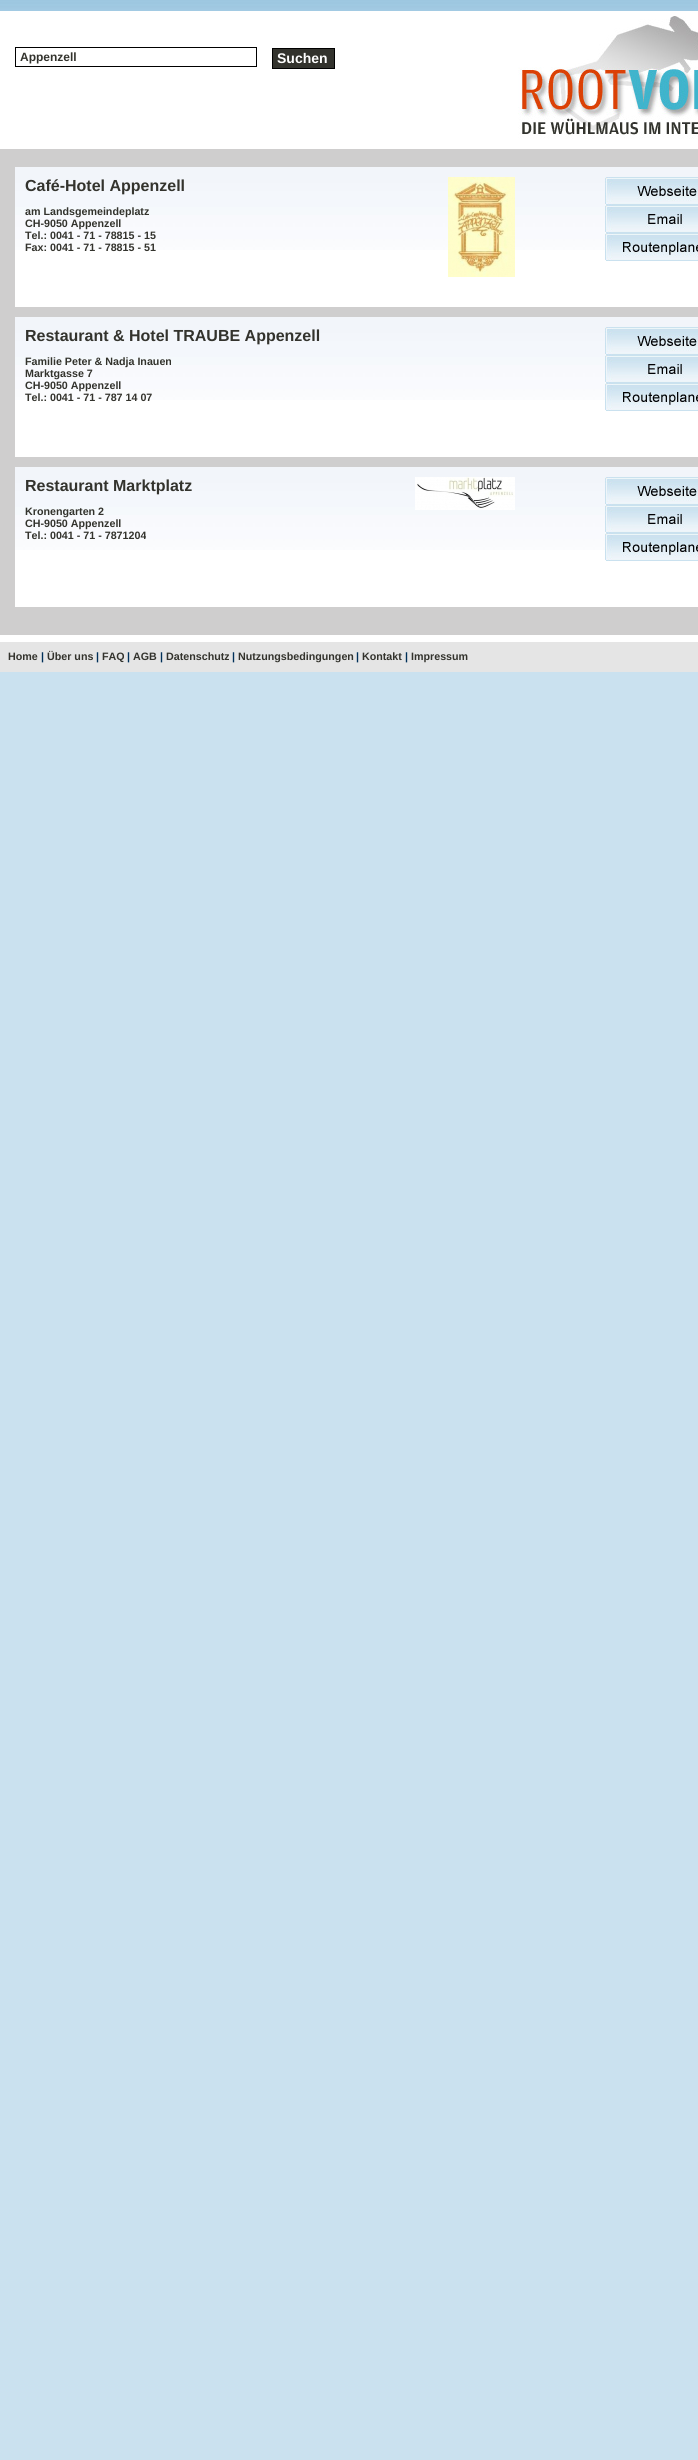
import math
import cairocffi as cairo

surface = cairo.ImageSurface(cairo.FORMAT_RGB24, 698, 2460)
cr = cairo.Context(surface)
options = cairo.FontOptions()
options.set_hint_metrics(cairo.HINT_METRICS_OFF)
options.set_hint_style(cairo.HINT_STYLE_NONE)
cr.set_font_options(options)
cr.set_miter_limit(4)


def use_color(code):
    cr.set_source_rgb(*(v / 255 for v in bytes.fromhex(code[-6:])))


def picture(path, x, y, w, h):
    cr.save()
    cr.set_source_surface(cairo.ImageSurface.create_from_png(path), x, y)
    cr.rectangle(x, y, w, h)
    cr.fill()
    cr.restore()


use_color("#cae1ef")
cr.paint()
picture("img1.png", 0, 0, 698, 11)
use_color("#ffffff")
cr.rectangle(0, 11, 698, 631)
cr.fill()
cr.rectangle(15.5, 47.5, 241, 19)
use_color("#000000")
cr.set_line_width(1)
cr.stroke()
cr.select_font_face("Liberation Sans", cairo.FONT_SLANT_NORMAL, cairo.FONT_WEIGHT_BOLD)
cr.set_font_size(12)
use_color("#33332d")
cr.move_to(20, 61)
cr.show_text("Appenzell")
cr.rectangle(272.5, 48.5, 62, 20)
cr.fill_preserve()
use_color("#000000")
cr.stroke()
cr.set_font_size(14)
use_color("#ffffff")
cr.move_to(277, 63)
cr.show_text("Suchen")
picture("img2.png", 518, 16, 180, 123)
use_color("#cfcece")
cr.rectangle(0, 149, 698, 486)
cr.fill()
use_color("#ffffff")
cr.rectangle(15, 250, 683, 57)
cr.fill()
picture("img3.png", 15, 167, 683, 83)
cr.set_font_size(16)
use_color("#33332d")
cr.move_to(25, 191)
cr.show_text("Café-Hotel Appenzell")
cr.set_font_size(10.7)
cr.move_to(25, 215)
cr.show_text("am Landsgemeindeplatz")
cr.move_to(25, 227)
cr.show_text("CH-9050 Appenzell")
cr.move_to(25, 239)
cr.show_text("Tel.: 0041 - 71 - 78815 - 15")
cr.move_to(25, 251)
cr.show_text("Fax: 0041 - 71 - 78815 - 51")
picture("img4.png", 448, 177, 67, 100)
picture("img5.png", 605, 177, 93, 28)
picture("img6.png", 605, 205, 93, 28)
picture("img7.png", 605, 233, 93, 28)
use_color("#ffffff")
cr.rectangle(15, 400, 683, 57)
cr.fill()
picture("img3.png", 15, 317, 683, 83)
cr.set_font_size(16)
use_color("#33332d")
cr.move_to(25, 341)
cr.show_text("Restaurant & Hotel TRAUBE Appenzell")
cr.set_font_size(10.7)
cr.move_to(25, 365)
cr.show_text("Familie Peter & Nadja Inauen")
cr.move_to(25, 377)
cr.show_text("Marktgasse 7")
cr.move_to(25, 389)
cr.show_text("CH-9050 Appenzell")
cr.move_to(25, 401)
cr.show_text("Tel.: 0041 - 71 - 787 14 07")
picture("img5.png", 605, 327, 93, 28)
picture("img6.png", 605, 355, 93, 28)
picture("img7.png", 605, 383, 93, 28)
use_color("#ffffff")
cr.rectangle(15, 550, 683, 57)
cr.fill()
picture("img3.png", 15, 467, 683, 83)
cr.set_font_size(16)
use_color("#33332d")
cr.move_to(25, 491)
cr.show_text("Restaurant Marktplatz")
cr.set_font_size(10.7)
cr.move_to(25, 515)
cr.show_text("Kronengarten 2")
cr.move_to(25, 527)
cr.show_text("CH-9050 Appenzell")
cr.move_to(25, 539)
cr.show_text("Tel.: 0041 - 71 - 7871204")
picture("img8.png", 415, 477, 100, 33)
picture("img5.png", 605, 477, 93, 28)
picture("img6.png", 605, 505, 93, 28)
picture("img7.png", 605, 533, 93, 28)
use_color("#e5e5e5")
cr.rectangle(0, 642, 698, 30)
cr.fill()
use_color("#33332d")
cr.move_to(8, 660)
cr.show_text("Home")
use_color("#003059")
cr.move_to(41, 660)
cr.show_text("|")
use_color("#33332d")
cr.move_to(47, 660)
cr.show_text("Über uns")
use_color("#003059")
cr.move_to(96, 660)
cr.show_text("|")
use_color("#33332d")
cr.move_to(102, 660)
cr.show_text("FAQ")
use_color("#003059")
cr.move_to(127, 660)
cr.show_text("|")
use_color("#33332d")
cr.move_to(133, 660)
cr.show_text("AGB")
use_color("#003059")
cr.move_to(160, 660)
cr.show_text("|")
use_color("#33332d")
cr.move_to(166, 660)
cr.show_text("Datenschutz")
use_color("#003059")
cr.move_to(232, 660)
cr.show_text("|")
use_color("#33332d")
cr.move_to(238, 660)
cr.show_text("Nutzungsbedingungen")
use_color("#003059")
cr.move_to(356, 660)
cr.show_text("|")
use_color("#33332d")
cr.move_to(362, 660)
cr.show_text("Kontakt")
use_color("#003059")
cr.move_to(405, 660)
cr.show_text("|")
use_color("#33332d")
cr.move_to(411, 660)
cr.show_text("Impressum")
surface.write_to_png("result.png")
